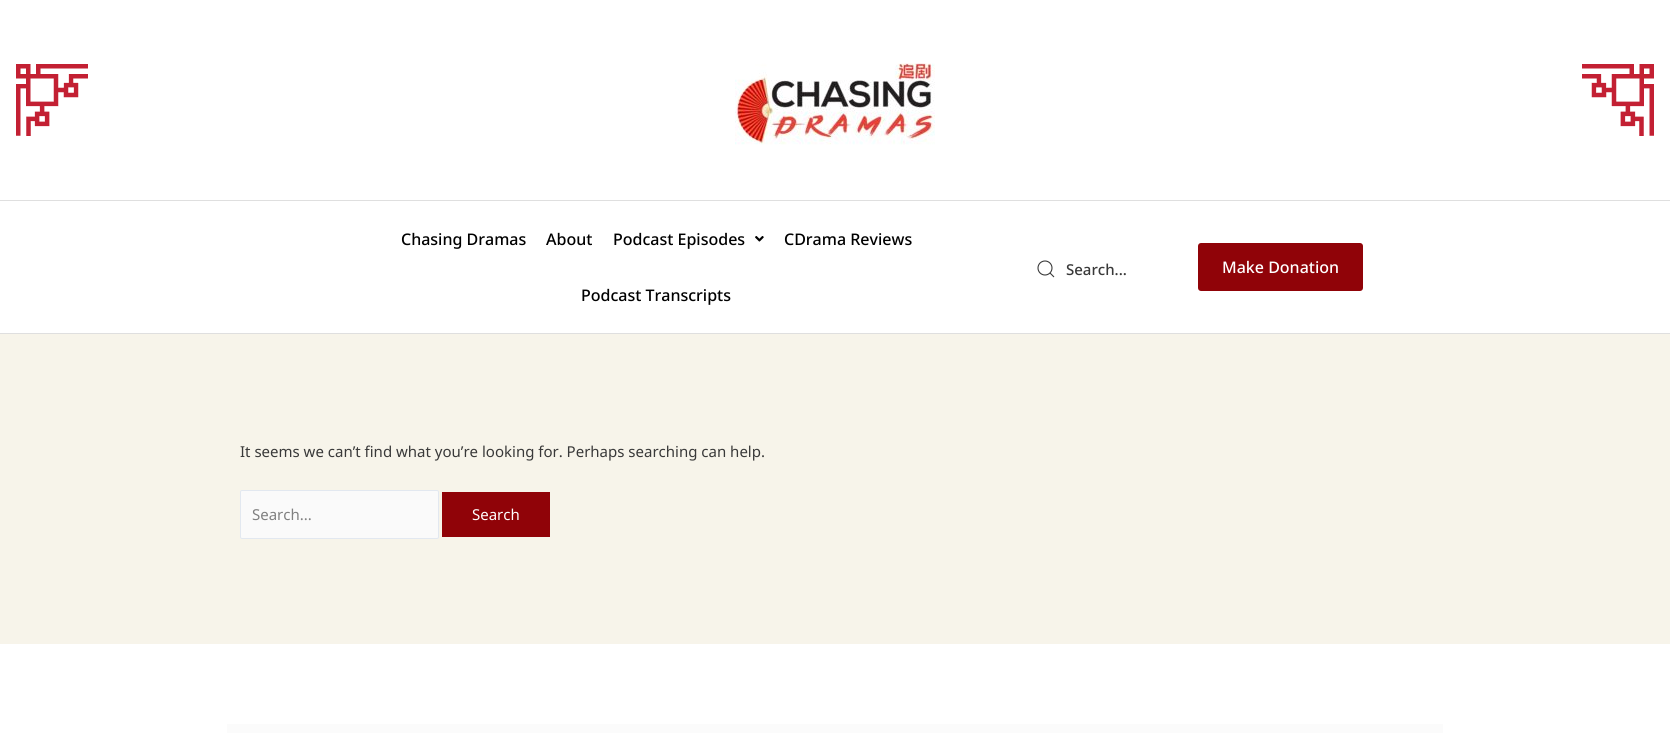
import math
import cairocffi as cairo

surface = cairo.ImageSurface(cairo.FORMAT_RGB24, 1670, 733)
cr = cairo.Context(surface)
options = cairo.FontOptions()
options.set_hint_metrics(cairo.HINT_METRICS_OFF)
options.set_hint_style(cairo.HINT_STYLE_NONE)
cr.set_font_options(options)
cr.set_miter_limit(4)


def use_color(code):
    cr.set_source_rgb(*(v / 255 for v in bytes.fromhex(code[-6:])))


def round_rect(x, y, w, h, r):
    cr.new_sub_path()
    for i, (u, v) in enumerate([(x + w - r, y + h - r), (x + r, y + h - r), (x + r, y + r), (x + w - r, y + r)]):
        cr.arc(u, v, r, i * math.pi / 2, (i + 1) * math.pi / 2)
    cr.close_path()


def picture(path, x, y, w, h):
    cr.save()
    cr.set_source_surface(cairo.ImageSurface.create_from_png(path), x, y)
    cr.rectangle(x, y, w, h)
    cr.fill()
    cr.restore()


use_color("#f7f4ea")
cr.paint()
use_color("#ffffff")
cr.rectangle(0, 0, 1670, 200)
cr.fill()
picture("img1.png", 1582, 64, 72, 72)
picture("img2.png", 16, 64, 72, 72)
picture("img3.png", 735, 63, 200, 82)
cr.rectangle(0, 201, 1670, 132)
cr.fill()
use_color("#dfdfdf")
cr.rectangle(0, 200, 1670, 1)
cr.fill()
cr.rectangle(0, 333, 1670, 1)
cr.fill()
cr.select_font_face("Noto Sans Medium")
cr.set_font_size(16)
use_color("#000000")
cr.move_to(401, 245)
cr.show_text("Chasing Dramas")
cr.move_to(546, 245)
cr.show_text("About")
cr.move_to(613, 245)
cr.show_text("Podcast Episodes")
picture("img4.png", 755, 236, 9, 6)
cr.move_to(784, 245)
cr.show_text("CDrama Reviews")
cr.move_to(581, 301)
cr.show_text("Podcast Transcripts")
cr.new_path()
cr.arc(1045, 268, 7, 0, 2 * math.pi)
use_color("#393939")
cr.set_line_width(1.1)
cr.stroke()
cr.new_path()
cr.move_to(1050, 273)
cr.line_to(1054, 277)
cr.close_path()
cr.stroke()
cr.set_font_size(15)
cr.move_to(1066, 275)
cr.show_text("Search...")
use_color("#900308")
round_rect(1198, 243, 165, 48, 3)
cr.fill()
cr.set_font_size(16)
use_color("#ffffff")
cr.move_to(1222, 273)
cr.show_text("Make Donation")
cr.select_font_face("Noto Sans")
cr.set_font_size(15)
use_color("#393939")
cr.move_to(240, 457)
cr.show_text("It seems we can’t find what you’re looking for. Perhaps searching can help.")
use_color("#fafafa")
round_rect(240.5, 490.5, 198, 48, 1.5)
cr.fill_preserve()
use_color("#e2e8f0")
cr.set_line_width(1)
cr.stroke()
use_color("#808080")
cr.move_to(252, 520)
cr.show_text("Search...")
use_color("#900308")
cr.rectangle(442, 492, 108, 45)
cr.fill()
use_color("#ffffff")
cr.move_to(472, 520)
cr.show_text("Search")
cr.rectangle(0, 644, 1670, 89)
cr.fill()
use_color("#fbfbfb")
cr.rectangle(227, 724, 1216, 9)
cr.fill()
surface.write_to_png("result.png")
